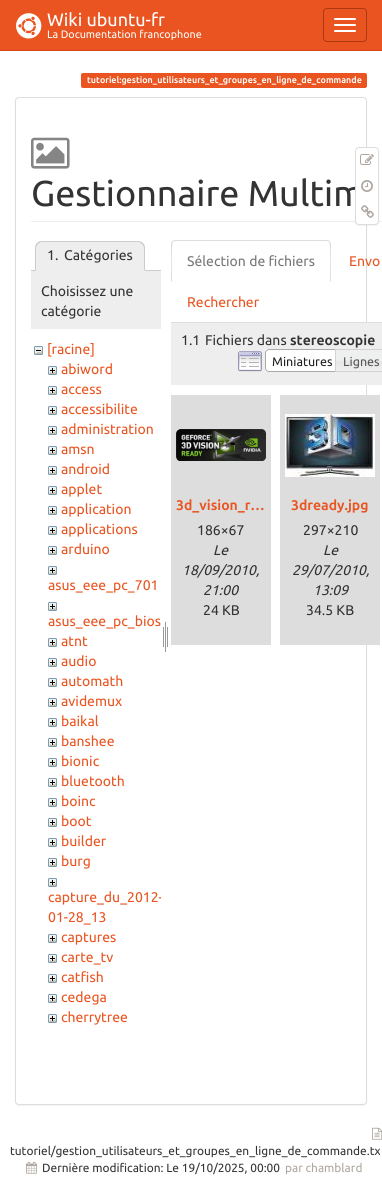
import math
import cairocffi as cairo

surface = cairo.ImageSurface(cairo.FORMAT_RGB24, 382, 1188)
cr = cairo.Context(surface)
options = cairo.FontOptions()
options.set_hint_metrics(cairo.HINT_METRICS_OFF)
options.set_hint_style(cairo.HINT_STYLE_NONE)
cr.set_font_options(options)
cr.set_miter_limit(4)


def use_color(code):
    cr.set_source_rgb(*(v / 255 for v in bytes.fromhex(code[-6:])))


def round_rect(x, y, w, h, r):
    cr.new_sub_path()
    for i, (u, v) in enumerate([(x + w - r, y + h - r), (x + r, y + h - r), (x + r, y + r), (x + w - r, y + r)]):
        cr.arc(u, v, r, i * math.pi / 2, (i + 1) * math.pi / 2)
    cr.close_path()


def shadow(x, y, w, h, r, blur, alpha):
    cr.push_group_with_content(cairo.CONTENT_ALPHA)
    cr.set_operator(cairo.OPERATOR_SOURCE)
    for i in range(15, -16, -2):
        e = blur * i / 6
        if min(w, h) + 2 * e > 0:
            cr.set_source_rgba(0, 0, 0, alpha * math.erfc((i - 1) / 8.5) / 2)
            round_rect(x - e, y - e, w + 2 * e, h + 2 * e, max(0, min(r + e + blur * .6, min(w, h) / 2 + e)))
            cr.fill()
    cr.mask(cr.pop_group())


def picture(path, x, y, w, h):
    cr.save()
    cr.set_source_surface(cairo.ImageSurface.create_from_png(path), x, y)
    cr.rectangle(x, y, w, h)
    cr.fill()
    cr.restore()


use_color("#ffffff")
cr.paint()
use_color("#e95420")
cr.rectangle(0, 0, 382, 50)
cr.fill()
use_color("#d34615")
cr.rectangle(0, 50, 382, 1)
cr.fill()
picture("img1.png", 16, 13, 26, 26)
cr.select_font_face("Ubuntu")
cr.set_font_size(18)
use_color("#ffffff")
cr.move_to(47, 26)
cr.show_text("Wiki ubuntu-fr")
cr.set_font_size(10.75)
cr.move_to(47, 38)
cr.show_text("La Documentation francophone")
round_rect(323.5, 8.5, 43, 33, 3.5)
use_color("#ac3911")
cr.set_line_width(1)
cr.stroke()
use_color("#ffffff")
round_rect(334, 18, 22, 2, 1)
cr.fill()
round_rect(334, 24, 22, 2, 1)
cr.fill()
round_rect(334, 30, 22, 2, 1)
cr.fill()
use_color("#e95420")
round_rect(81, 73, 286, 15, 2)
cr.fill()
cr.select_font_face("Ubuntu", cairo.FONT_SLANT_NORMAL, cairo.FONT_WEIGHT_BOLD)
cr.set_font_size(8.9)
use_color("#ffffff")
cr.move_to(87, 83)
cr.show_text("tutoriel:gestion_utilisateurs_et_groupes_en_ligne_de_commande")
use_color("#000000")
shadow(15, 98, 352, 1008, 4, 0.5, 0.05)
use_color("#ffffff")
round_rect(15.5, 97.5, 351, 1007, 3.5)
cr.fill_preserve()
use_color("#dddddd")
cr.stroke()
use_color("#eeeeee")
cr.rectangle(31, 221, 351, 1)
cr.fill()
use_color("#000000")
shadow(355, 148, 24, 78, 4, 0.5, 0.05)
cr.select_font_face("Ubuntu")
cr.set_font_size(36)
use_color("#333333")
cr.move_to(31, 206)
cr.show_text("Gestionnaire Multim")
use_color("#ffffff")
round_rect(355.5, 147.5, 23, 77, 3.5)
cr.fill_preserve()
use_color("#dddddd")
cr.stroke()
picture("img2.png", 360, 154, 14, 11)
picture("img3.png", 361, 180, 12, 12)
picture("img4.png", 361, 205, 13, 13)
picture("img5.png", 31, 137, 39, 32)
use_color("#cccccc")
cr.rectangle(31, 270, 130, 1)
cr.fill()
use_color("#eeeeee")
cr.new_path()
cr.move_to(42, 241)
cr.line_to(138, 241)
cr.curve_to(142, 241, 145, 244, 145, 248)
cr.line_to(145, 271)
cr.line_to(35, 271)
cr.line_to(35, 248)
cr.curve_to(35, 244, 38, 241, 42, 241)
cr.close_path()
cr.fill()
use_color("#cccccc")
cr.new_path()
cr.move_to(42, 241)
cr.curve_to(40, 241, 38, 242, 37, 243)
cr.line_to(38, 244)
cr.line_to(41, 242)
cr.line_to(139, 242)
cr.line_to(142, 244)
cr.line_to(143, 243)
cr.curve_to(142, 242, 140, 241, 138, 241)
cr.close_path()
cr.fill()
cr.new_path()
cr.move_to(145, 271)
cr.line_to(145, 248)
cr.curve_to(145, 246, 144, 244, 143, 243)
cr.line_to(142, 244)
cr.curve_to(143, 245, 144, 246.5, 144, 248)
cr.line_to(144, 270)
cr.close_path()
cr.fill()
use_color("#eeeeee")
cr.new_path()
cr.move_to(145, 271)
cr.line_to(144, 270)
cr.line_to(36, 270)
cr.line_to(35, 271)
cr.close_path()
cr.fill()
use_color("#cccccc")
cr.new_path()
cr.move_to(35, 271)
cr.line_to(36, 270)
cr.line_to(36, 248)
cr.curve_to(36, 246.5, 37, 245, 38, 244)
cr.line_to(37, 243)
cr.curve_to(36, 244, 35, 246, 35, 248)
cr.close_path()
cr.fill()
cr.set_font_size(14)
use_color("#333333")
cr.move_to(47, 260)
cr.show_text("1.")
cr.move_to(64, 260)
cr.show_text("Catégories")
use_color("#eeeeee")
cr.rectangle(31, 271, 130, 58)
cr.fill()
use_color("#333333")
cr.move_to(41, 296)
cr.show_text("Choisissez une")
cr.move_to(41, 316)
cr.show_text("catégorie")
picture("img6.png", 34, 346, 9, 9)
use_color("#e95420")
cr.move_to(47, 354)
cr.show_text("[racine]")
picture("img7.png", 48, 366, 9, 9)
cr.move_to(61, 374)
cr.show_text("abiword")
picture("img7.png", 48, 386, 9, 9)
cr.move_to(61, 394)
cr.show_text("access")
picture("img7.png", 48, 406, 9, 9)
cr.move_to(61, 414)
cr.show_text("accessibilite")
picture("img7.png", 48, 426, 9, 9)
cr.move_to(61, 434)
cr.show_text("administration")
picture("img7.png", 48, 446, 9, 9)
cr.move_to(61, 454)
cr.show_text("amsn")
picture("img7.png", 48, 466, 9, 9)
cr.move_to(61, 474)
cr.show_text("android")
picture("img7.png", 48, 486, 9, 9)
cr.move_to(61, 494)
cr.show_text("applet")
picture("img7.png", 48, 506, 9, 9)
cr.move_to(61, 514)
cr.show_text("application")
picture("img7.png", 48, 526, 9, 9)
cr.move_to(61, 534)
cr.show_text("applications")
picture("img7.png", 48, 546, 9, 9)
cr.move_to(61, 554)
cr.show_text("arduino")
picture("img7.png", 48, 566, 9, 9)
cr.move_to(48, 590)
cr.show_text("asus_eee_pc_701")
picture("img7.png", 48, 602, 9, 9)
cr.move_to(48, 626)
cr.show_text("asus_eee_pc_bios")
picture("img7.png", 48, 638, 9, 9)
cr.move_to(61, 646)
cr.show_text("atnt")
picture("img7.png", 48, 658, 9, 9)
cr.move_to(61, 666)
cr.show_text("audio")
picture("img7.png", 48, 678, 9, 9)
cr.move_to(61, 686)
cr.show_text("automath")
picture("img7.png", 48, 698, 9, 9)
cr.move_to(61, 706)
cr.show_text("avidemux")
picture("img7.png", 48, 718, 9, 9)
cr.move_to(61, 726)
cr.show_text("baikal")
picture("img7.png", 48, 738, 9, 9)
cr.move_to(61, 746)
cr.show_text("banshee")
picture("img7.png", 48, 758, 9, 9)
cr.move_to(61, 766)
cr.show_text("bionic")
picture("img7.png", 48, 778, 9, 9)
cr.move_to(61, 786)
cr.show_text("bluetooth")
picture("img7.png", 48, 798, 9, 9)
cr.move_to(61, 806)
cr.show_text("boinc")
picture("img7.png", 48, 818, 9, 9)
cr.move_to(61, 826)
cr.show_text("boot")
picture("img7.png", 48, 838, 9, 9)
cr.move_to(61, 846)
cr.show_text("builder")
picture("img7.png", 48, 858, 9, 9)
cr.move_to(61, 866)
cr.show_text("burg")
picture("img7.png", 48, 878, 9, 9)
cr.save()
cr.rectangle(48, 871, 113, 56)
cr.clip()
cr.move_to(48, 902)
cr.show_text("capture_du_2012-")
cr.restore()
cr.move_to(48, 922)
cr.show_text("01-28_13")
picture("img7.png", 48, 934, 9, 9)
cr.move_to(61, 942)
cr.show_text("captures")
picture("img7.png", 48, 954, 9, 9)
cr.move_to(61, 962)
cr.show_text("carte_tv")
picture("img7.png", 48, 974, 9, 9)
cr.move_to(61, 982)
cr.show_text("catfish")
picture("img7.png", 48, 994, 9, 9)
cr.move_to(61, 1002)
cr.show_text("cedega")
picture("img7.png", 48, 1014, 9, 9)
cr.move_to(61, 1022)
cr.show_text("cherrytree")
picture("img8.png", 163, 621, 5, 31)
use_color("#dddddd")
cr.rectangle(171, 322, 211, 1)
cr.fill()
cr.new_path()
cr.move_to(175, 240)
cr.line_to(172, 241)
cr.line_to(173, 242)
cr.line_to(175, 241)
cr.line_to(327, 241)
cr.line_to(329, 242)
cr.line_to(330, 241)
cr.line_to(327, 240)
cr.close_path()
cr.fill()
cr.new_path()
cr.move_to(331, 282)
cr.line_to(331, 244)
cr.curve_to(331, 243, 330, 242, 330, 241)
cr.line_to(329, 242)
cr.curve_to(331, 244, 330, 276, 330, 281)
cr.close_path()
cr.fill()
cr.new_path()
cr.move_to(171, 282)
cr.line_to(172, 281)
cr.curve_to(172, 276, 171, 244, 173, 242)
cr.line_to(172, 241)
cr.line_to(171, 244)
cr.close_path()
cr.fill()
use_color("#777777")
cr.move_to(187, 266)
cr.show_text("Sélection de fichiers")
use_color("#e95420")
cr.move_to(349, 266)
cr.show_text("Envo")
cr.move_to(187, 307)
cr.show_text("Rechercher")
use_color("#eeeeee")
cr.rectangle(171, 323, 211, 62)
cr.fill()
use_color("#333333")
cr.move_to(181, 345)
cr.show_text("1.1")
cr.move_to(205, 345)
cr.show_text("Fichiers dans")
cr.select_font_face("Ubuntu", cairo.FONT_SLANT_NORMAL, cairo.FONT_WEIGHT_BOLD)
cr.move_to(290, 345)
cr.show_text("stereoscopie")
picture("img9.png", 238, 351, 24, 21)
use_color("#ffffff")
cr.rectangle(265, 349, 70, 23)
cr.fill()
cr.new_path()
cr.move_to(269, 349.5)
cr.line_to(339.5, 349.5)
cr.line_to(339.5, 371.5)
cr.line_to(269, 371.5)
cr.curve_to(267, 371.5, 265.5, 370, 265.5, 368)
cr.line_to(265.5, 353)
cr.curve_to(265.5, 351, 267, 349.5, 269, 349.5)
cr.close_path()
use_color("#aaaaaa")
cr.stroke()
cr.select_font_face("Ubuntu")
cr.set_font_size(12.5)
use_color("#212121")
cr.move_to(272, 366)
cr.show_text("Miniatures")
picture("img10.png", 336, 350, 46, 21)
cr.rectangle(335.5, 349.5, 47, 22)
use_color("#d3d3d3")
cr.stroke()
use_color("#555555")
cr.move_to(343, 366)
cr.show_text("Lignes")
use_color("#dddddd")
cr.rectangle(171, 395, 100, 250)
cr.fill()
picture("img11.png", 176, 429, 90, 32)
cr.select_font_face("Ubuntu", cairo.FONT_SLANT_NORMAL, cairo.FONT_WEIGHT_BOLD)
cr.set_font_size(14)
use_color("#e95420")
cr.move_to(176, 510)
cr.show_text("3d_vision_r…")
cr.select_font_face("Ubuntu")
use_color("#333333")
cr.move_to(197, 535)
cr.show_text("186×67")
cr.select_font_face("Ubuntu", cairo.FONT_SLANT_ITALIC)
cr.move_to(213, 555)
cr.show_text("Le")
cr.move_to(182, 575)
cr.show_text("18/09/2010,")
cr.move_to(203, 595)
cr.show_text("21:00")
cr.select_font_face("Ubuntu")
cr.move_to(203, 615)
cr.show_text("24 KB")
use_color("#dddddd")
cr.rectangle(280, 395, 100, 250)
cr.fill()
picture("img12.png", 285, 414, 90, 63)
cr.select_font_face("Ubuntu", cairo.FONT_SLANT_NORMAL, cairo.FONT_WEIGHT_BOLD)
use_color("#e95420")
cr.move_to(291, 510)
cr.show_text("3dready.jpg")
cr.select_font_face("Ubuntu")
use_color("#333333")
cr.move_to(303, 535)
cr.show_text("297×210")
cr.select_font_face("Ubuntu", cairo.FONT_SLANT_ITALIC)
cr.move_to(323, 555)
cr.show_text("Le")
cr.move_to(292, 575)
cr.show_text("29/07/2010,")
cr.move_to(313, 595)
cr.show_text("13:09")
cr.select_font_face("Ubuntu")
cr.move_to(306, 615)
cr.show_text("34.5 KB")
picture("img13.png", 372, 1127, 10, 13)
cr.set_font_size(11.9)
cr.move_to(10, 1155)
cr.show_text("tutoriel/gestion_utilisateurs_et_groupes_en_ligne_de_commande.tx")
picture("img14.png", 26, 1161, 12, 13)
cr.move_to(42, 1172)
cr.show_text("Dernière modification: Le 19/10/2025, 00:00")
use_color("#aea79f")
cr.move_to(285, 1172)
cr.show_text("par chamblard")
surface.write_to_png("result.png")
